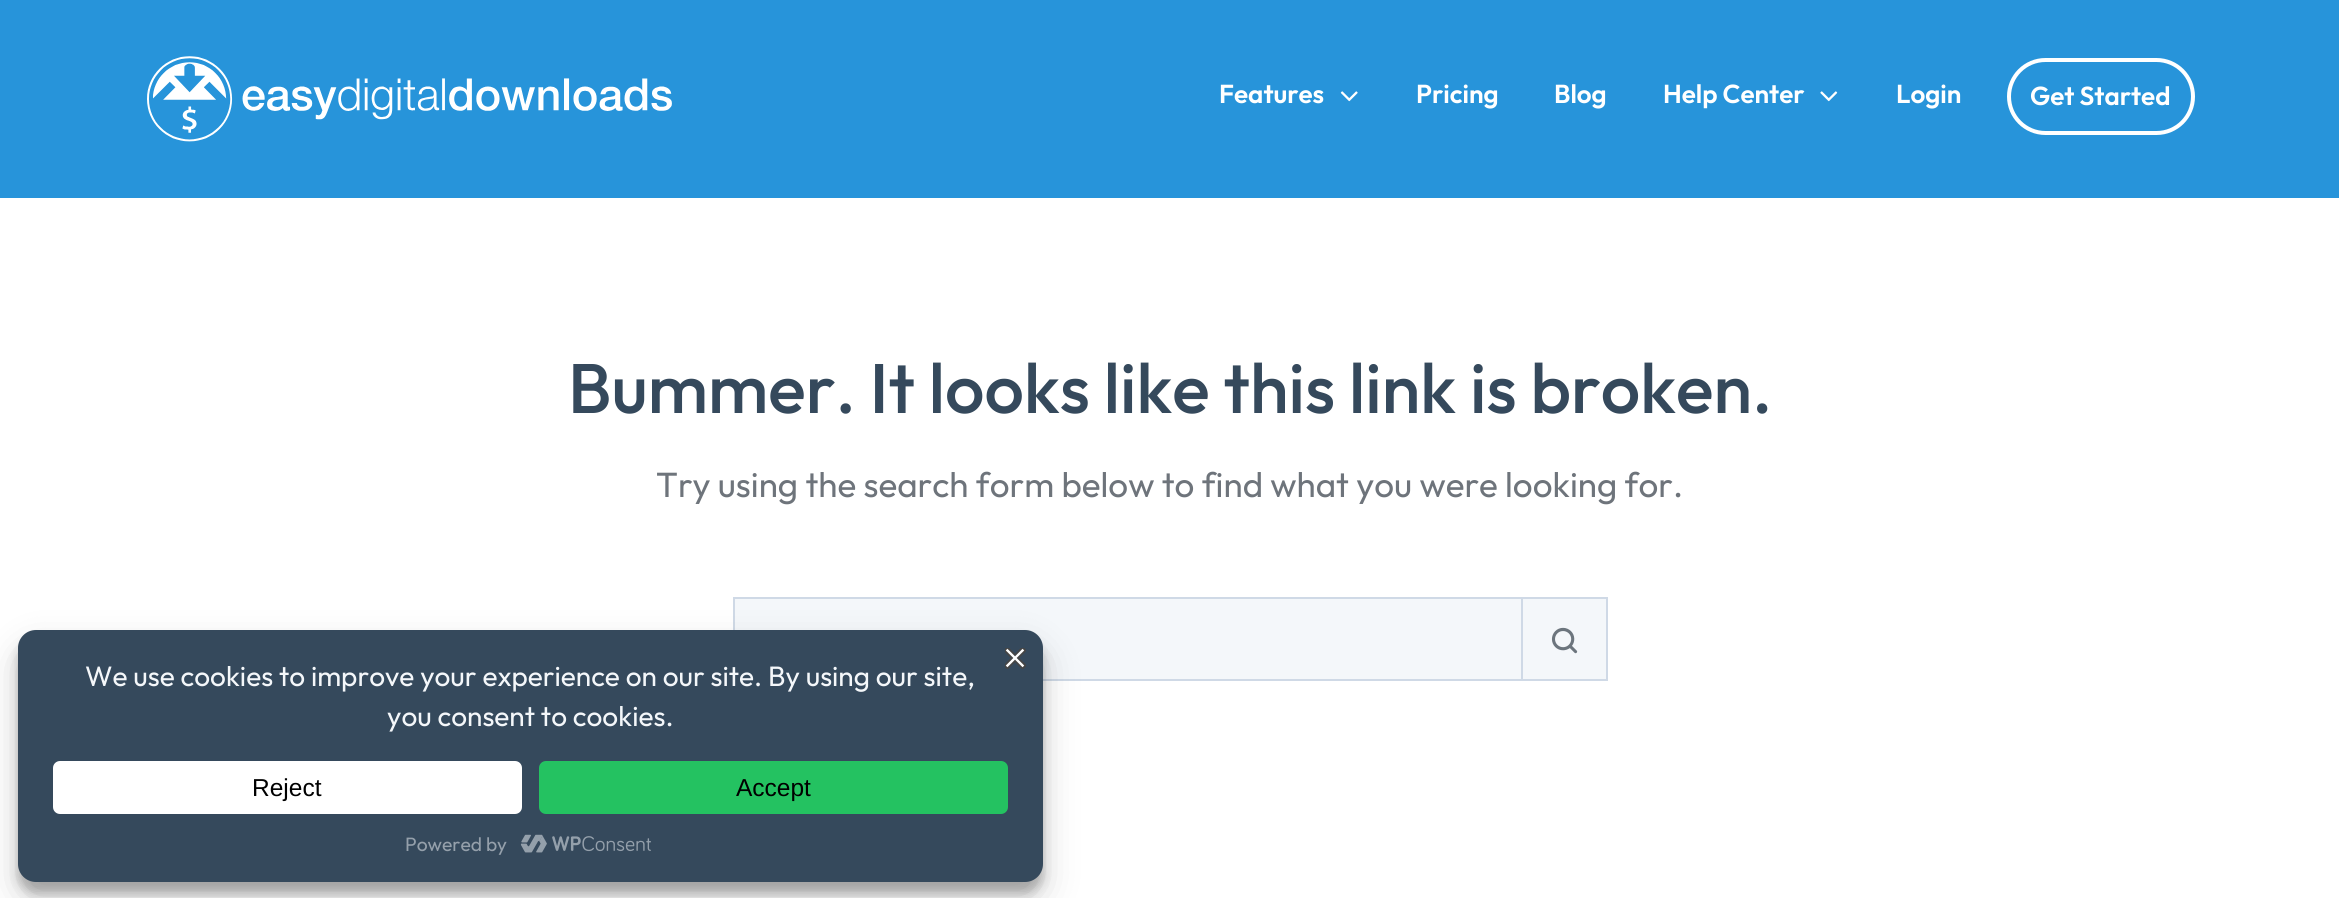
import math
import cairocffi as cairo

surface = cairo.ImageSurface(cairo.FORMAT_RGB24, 2339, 898)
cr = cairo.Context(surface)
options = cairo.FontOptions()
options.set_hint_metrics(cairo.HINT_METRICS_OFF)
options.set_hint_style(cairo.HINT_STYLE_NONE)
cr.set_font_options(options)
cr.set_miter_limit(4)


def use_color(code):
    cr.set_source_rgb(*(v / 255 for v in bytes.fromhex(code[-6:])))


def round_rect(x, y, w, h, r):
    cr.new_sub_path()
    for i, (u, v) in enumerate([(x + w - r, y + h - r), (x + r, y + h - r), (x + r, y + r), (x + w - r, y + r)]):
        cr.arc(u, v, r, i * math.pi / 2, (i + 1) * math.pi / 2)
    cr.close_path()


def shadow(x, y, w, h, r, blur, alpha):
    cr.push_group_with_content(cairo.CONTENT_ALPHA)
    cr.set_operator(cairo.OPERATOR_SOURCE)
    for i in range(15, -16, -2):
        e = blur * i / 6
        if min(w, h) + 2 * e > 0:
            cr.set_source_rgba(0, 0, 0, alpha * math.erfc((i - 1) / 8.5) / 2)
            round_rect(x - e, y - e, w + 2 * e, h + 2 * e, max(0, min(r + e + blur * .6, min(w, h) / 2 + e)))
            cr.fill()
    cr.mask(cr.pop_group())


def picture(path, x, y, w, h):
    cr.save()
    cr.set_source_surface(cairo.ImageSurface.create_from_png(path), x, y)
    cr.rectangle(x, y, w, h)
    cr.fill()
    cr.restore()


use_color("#ffffff")
cr.paint()
use_color("#2794da")
cr.rectangle(0, 0, 2339, 198)
cr.fill()
picture("img1.png", 147, 56, 525, 86)
cr.select_font_face("Outfit SemiBold")
cr.set_font_size(26)
use_color("#ffffff")
cr.move_to(1219, 103)
cr.show_text("Features")
picture("img2.png", 1340, 91, 18, 11)
cr.move_to(1416, 103)
cr.show_text("Pricing")
cr.move_to(1554, 103)
cr.show_text("Blog")
cr.move_to(1663, 103)
cr.show_text("Help Center")
picture("img3.png", 1820, 91, 18, 11)
cr.move_to(1896, 103)
cr.show_text("Login")
round_rect(2009, 60, 184, 73, 36.5)
cr.set_line_width(4)
cr.stroke()
cr.move_to(2030, 105)
cr.show_text("Get Started")
cr.select_font_face("Outfit Medium")
cr.set_font_size(70)
use_color("#35495c")
cr.move_to(568, 413)
cr.show_text("Bummer. It looks like this link is broken.")
cr.select_font_face("Outfit")
cr.set_font_size(35)
use_color("#6e747b")
cr.move_to(656, 497)
cr.show_text("Try using the search form below to find what you were looking for.")
use_color("#f4f7fa")
cr.rectangle(734, 598, 788, 82)
cr.fill_preserve()
use_color("#cfd9e6")
cr.set_line_width(2)
cr.stroke()
use_color("#f4f7fa")
cr.rectangle(1522, 598, 85, 82)
cr.fill_preserve()
use_color("#cfd9e6")
cr.stroke()
picture("img4.png", 1551, 627, 27, 27)
use_color("#000000")
shadow(18, 641, 1025, 252, 18, 5, 0.23)
shadow(18, 648, 1025, 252, 18, 17.5, 0.19)
use_color("#35495c")
round_rect(18, 630, 1025, 252, 18)
cr.fill()
picture("img5.png", 1005, 648, 21, 21)
cr.set_font_size(28)
use_color("#f4f7fa")
cr.move_to(85, 686)
cr.show_text("We use cookies to improve your experience on our site. By using our site,")
cr.move_to(387, 726)
cr.show_text("you consent to cookies.")
use_color("#ffffff")
round_rect(53, 761, 469, 53, 7)
cr.fill()
cr.select_font_face("Liberation Sans")
cr.set_font_size(24.5)
use_color("#000000")
cr.move_to(252, 796)
cr.show_text("Reject")
use_color("#24c261")
round_rect(539, 761, 469, 53, 7)
cr.fill()
use_color("#000000")
cr.move_to(736, 796)
cr.show_text("Accept")
cr.select_font_face("Outfit")
cr.set_font_size(19.25)
use_color("#95a0ab")
cr.move_to(405, 851)
cr.show_text("Powered by")
picture("img6.png", 520, 834, 131, 19)
surface.write_to_png("result.png")
